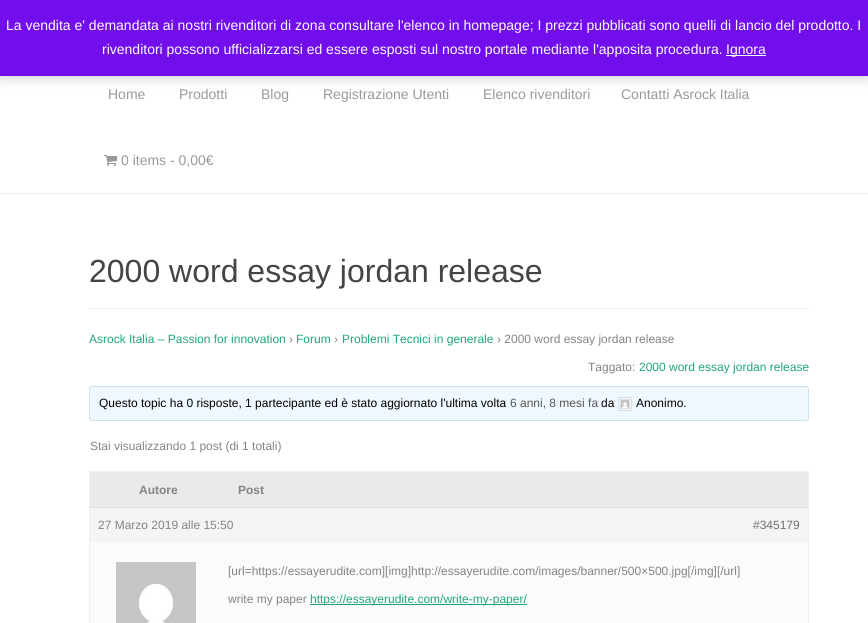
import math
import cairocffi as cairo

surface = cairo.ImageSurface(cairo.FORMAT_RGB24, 868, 623)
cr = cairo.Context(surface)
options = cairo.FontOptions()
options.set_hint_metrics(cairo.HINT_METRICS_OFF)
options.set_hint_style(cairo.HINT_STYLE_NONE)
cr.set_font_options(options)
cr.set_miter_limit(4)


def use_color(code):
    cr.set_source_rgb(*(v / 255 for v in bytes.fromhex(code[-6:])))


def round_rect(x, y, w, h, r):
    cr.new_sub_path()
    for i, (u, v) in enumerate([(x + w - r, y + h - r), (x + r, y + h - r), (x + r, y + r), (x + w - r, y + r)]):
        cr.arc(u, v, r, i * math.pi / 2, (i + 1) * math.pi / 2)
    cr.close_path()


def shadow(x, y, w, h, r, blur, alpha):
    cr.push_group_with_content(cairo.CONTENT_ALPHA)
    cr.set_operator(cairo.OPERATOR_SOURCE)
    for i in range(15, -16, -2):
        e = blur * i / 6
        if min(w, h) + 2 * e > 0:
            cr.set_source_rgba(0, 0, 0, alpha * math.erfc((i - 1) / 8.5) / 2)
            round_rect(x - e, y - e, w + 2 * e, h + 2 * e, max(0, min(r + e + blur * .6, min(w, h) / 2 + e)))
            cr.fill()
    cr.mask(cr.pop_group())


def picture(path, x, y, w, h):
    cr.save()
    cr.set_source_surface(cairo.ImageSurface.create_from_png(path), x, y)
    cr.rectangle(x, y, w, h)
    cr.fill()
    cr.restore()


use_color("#ffffff")
cr.paint()
use_color("#000000")
shadow(0, 1, 868, 76, 0, 7, 0.2)
use_color("#720eec")
cr.rectangle(0, 0, 868, 76)
cr.fill()
cr.select_font_face("Liberation Sans")
cr.set_font_size(14)
use_color("#fcfbfe")
cr.move_to(6, 30)
cr.show_text("La vendita e' demandata ai nostri rivenditori di zona consultare l'elenco in homepage; I prezzi pubblicati sono quelli di lancio del prodotto. I")
cr.move_to(102, 54)
cr.show_text("rivenditori possono ufficializzarsi ed essere esposti sul nostro portale mediante l'apposita procedura.")
cr.rectangle(726, 55, 40, 1)
cr.fill()
cr.move_to(726, 54)
cr.show_text("Ignora")
use_color("#eeeeee")
cr.rectangle(0, 193, 868, 1)
cr.fill()
use_color("#999999")
cr.move_to(108, 99)
cr.show_text("Home")
cr.move_to(179, 99)
cr.show_text("Prodotti")
cr.move_to(261, 99)
cr.show_text("Blog")
cr.move_to(323, 99)
cr.show_text("Registrazione Utenti")
cr.move_to(483, 99)
cr.show_text("Elenco rivenditori")
cr.move_to(621, 99)
cr.show_text("Contatti Asrock Italia")
picture("img1.png", 104, 155, 13, 11)
cr.move_to(121, 165)
cr.show_text("0 items - 0,00€")
use_color("#eeeeee")
cr.rectangle(89, 308, 720, 1)
cr.fill()
cr.set_font_size(32)
use_color("#444444")
cr.move_to(89, 282)
cr.show_text("2000 word essay jordan release")
cr.set_font_size(12)
use_color("#1fa67a")
cr.move_to(89, 343)
cr.show_text("Asrock Italia – Passion for innovation")
use_color("#848484")
cr.move_to(289, 343)
cr.show_text("›")
use_color("#1fa67a")
cr.move_to(296, 343)
cr.show_text("Forum")
use_color("#848484")
cr.move_to(334, 343)
cr.show_text("›")
use_color("#1fa67a")
cr.move_to(342, 343)
cr.show_text("Problemi Tecnici in generale")
use_color("#848484")
cr.move_to(497, 343)
cr.show_text("› 2000 word essay jordan release")
cr.move_to(588, 371)
cr.show_text("Taggato:")
use_color("#1fa67a")
cr.move_to(639, 371)
cr.show_text("2000 word essay jordan release")
use_color("#f0f8ff")
round_rect(89.5, 386.5, 719, 34, 2.5)
cr.fill_preserve()
use_color("#cee1ef")
cr.set_line_width(1)
cr.stroke()
use_color("#000000")
cr.move_to(99, 407)
cr.show_text("Questo topic ha 0 risposte, 1 partecipante ed è stato aggiornato l'ultima volta")
use_color("#555555")
cr.move_to(510, 407)
cr.show_text("6 anni, 8 mesi fa")
use_color("#000000")
cr.move_to(601, 407)
cr.show_text("da")
cr.rectangle(618.5, 397.5, 13, 13)
use_color("#dddddd")
cr.stroke()
cr.rectangle(620.5, 399.5, 9, 9)
cr.stroke()
picture("img2.png", 621, 400, 8, 8)
use_color("#000000")
cr.move_to(636, 407)
cr.show_text("Anonimo.")
use_color("#848484")
cr.move_to(90, 450)
cr.show_text("Stai visualizzando 1 post (di 1 totali)")
cr.rectangle(89.5, 471.5, 719, 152)
use_color("#eeeeee")
cr.stroke()
use_color("#eaeaea")
cr.rectangle(90, 473, 718, 34)
cr.fill()
use_color("#eeeeee")
cr.rectangle(90, 472, 718, 1)
cr.fill()
cr.select_font_face("Liberation Sans", cairo.FONT_SLANT_NORMAL, cairo.FONT_WEIGHT_BOLD)
use_color("#848484")
cr.move_to(139, 494)
cr.show_text("Autore")
cr.move_to(238, 494)
cr.show_text("Post")
use_color("#f4f4f4")
cr.rectangle(90, 508, 718, 34)
cr.fill()
use_color("#dddddd")
cr.rectangle(90, 507, 718, 1)
cr.fill()
cr.select_font_face("Liberation Sans")
use_color("#848484")
cr.move_to(98, 529)
cr.show_text("27 Marzo 2019 alle 15:50")
use_color("#707070")
cr.move_to(753, 529)
cr.show_text("#345179")
use_color("#fbfbfb")
cr.rectangle(90, 542, 718, 81)
cr.fill()
picture("img3.png", 116, 562, 80, 61)
use_color("#848484")
cr.move_to(228, 575)
cr.show_text("[url=https://essayerudite.com][img]http://essayerudite.com/images/banner/500×500.jpg[/img][/url]")
cr.move_to(228, 603)
cr.show_text("write my paper")
use_color("#1fa67a")
cr.rectangle(310, 604, 217, 1)
cr.fill()
cr.move_to(310, 603)
cr.show_text("https://essayerudite.com/write-my-paper/")
surface.write_to_png("result.png")
